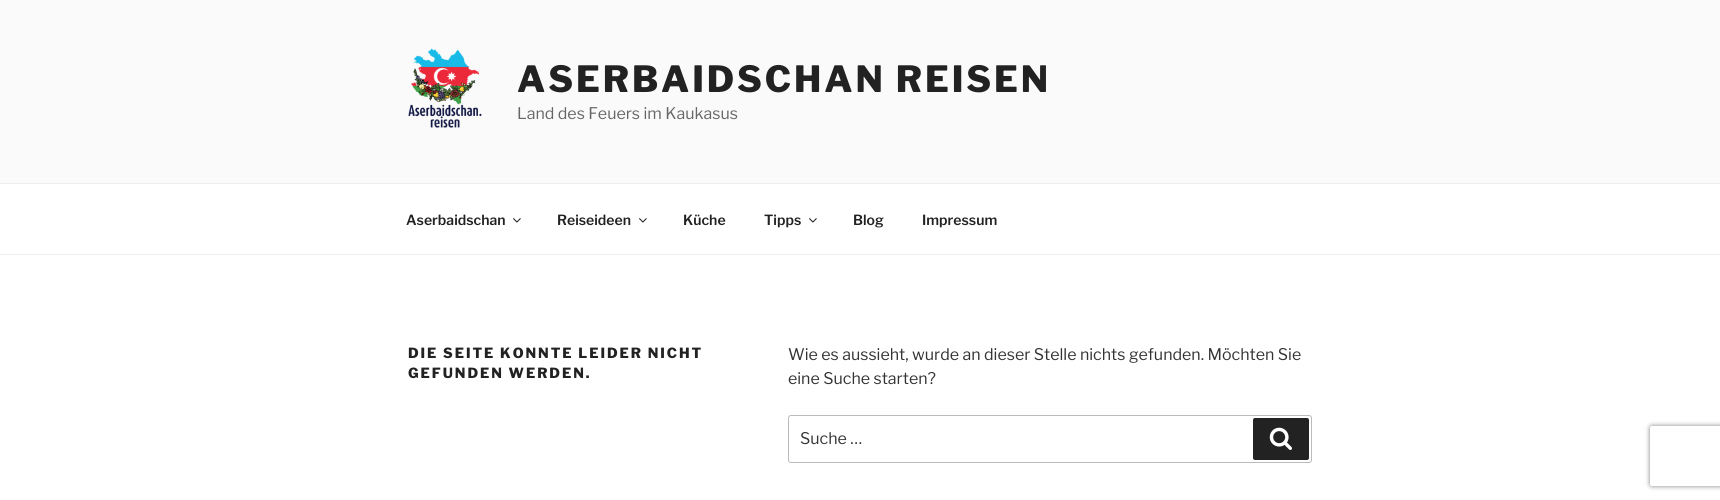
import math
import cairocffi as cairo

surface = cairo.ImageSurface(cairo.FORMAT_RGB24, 1720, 500)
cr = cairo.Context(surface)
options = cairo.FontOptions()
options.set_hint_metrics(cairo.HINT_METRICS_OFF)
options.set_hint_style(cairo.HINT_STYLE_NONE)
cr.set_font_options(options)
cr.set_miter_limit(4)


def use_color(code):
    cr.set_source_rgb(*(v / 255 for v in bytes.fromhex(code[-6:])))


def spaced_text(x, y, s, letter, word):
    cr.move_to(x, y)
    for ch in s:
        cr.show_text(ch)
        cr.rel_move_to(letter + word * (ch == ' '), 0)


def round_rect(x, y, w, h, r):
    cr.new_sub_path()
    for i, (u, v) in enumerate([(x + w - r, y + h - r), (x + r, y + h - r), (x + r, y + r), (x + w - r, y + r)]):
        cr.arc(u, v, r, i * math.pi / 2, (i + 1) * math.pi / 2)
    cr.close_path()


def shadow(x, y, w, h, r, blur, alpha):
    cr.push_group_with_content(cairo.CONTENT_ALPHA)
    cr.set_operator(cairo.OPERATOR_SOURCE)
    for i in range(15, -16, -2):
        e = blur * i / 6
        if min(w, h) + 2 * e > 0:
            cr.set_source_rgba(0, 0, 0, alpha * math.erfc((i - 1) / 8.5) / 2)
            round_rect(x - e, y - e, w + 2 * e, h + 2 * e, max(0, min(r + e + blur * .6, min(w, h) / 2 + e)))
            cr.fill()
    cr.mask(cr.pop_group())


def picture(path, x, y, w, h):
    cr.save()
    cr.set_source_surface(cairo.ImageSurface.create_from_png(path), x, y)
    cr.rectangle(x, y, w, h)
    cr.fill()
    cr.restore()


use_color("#ffffff")
cr.paint()
use_color("#fafafa")
cr.rectangle(0, 0, 1720, 183)
cr.fill()
picture("img1.png", 408, 48, 74, 80)
cr.select_font_face("Libre Franklin Thin")
cr.set_font_size(36)
use_color("#222222")
spaced_text(517, 92, "ASERBAIDSCHAN REISEN", 2.9, 0)
cr.select_font_face("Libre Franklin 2 Thin")
cr.set_font_size(16)
use_color("#666666")
cr.move_to(517, 119)
cr.show_text("Land des Feuers im Kaukasus")
use_color("#eeeeee")
cr.rectangle(0, 183, 1720, 1)
cr.fill()
cr.rectangle(0, 254, 1720, 1)
cr.fill()
cr.select_font_face("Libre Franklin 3 Thin")
cr.set_font_size(14)
use_color("#222222")
cr.move_to(406, 225)
cr.show_text("Aserbaidschan")
picture("img2.png", 513, 218, 8, 5)
cr.move_to(557, 225)
cr.show_text("Reiseideen")
picture("img2.png", 639, 218, 8, 5)
cr.move_to(683, 225)
cr.show_text("Küche")
cr.move_to(764, 225)
cr.show_text("Tipps")
picture("img2.png", 809, 218, 8, 5)
cr.move_to(853, 225)
cr.show_text("Blog")
cr.move_to(922, 225)
cr.show_text("Impressum")
cr.select_font_face("Libre Franklin Thin")
spaced_text(408, 358, "DIE SEITE KONNTE LEIDER NICHT", 1.95, 0)
spaced_text(408, 378, "GEFUNDEN WERDEN.", 1.95, 0)
cr.select_font_face("Libre Franklin 2 Thin")
cr.set_font_size(16)
use_color("#333333")
cr.move_to(788, 360)
cr.show_text("Wie es aussieht, wurde an dieser Stelle nichts gefunden. Möchten Sie")
cr.move_to(788, 384)
cr.show_text("eine Suche starten?")
round_rect(788.5, 415.5, 523, 47, 2.5)
use_color("#bbbbbb")
cr.set_line_width(1)
cr.stroke()
use_color("#333333")
cr.move_to(800, 444)
cr.show_text("Suche …")
use_color("#222222")
round_rect(1253, 418, 56, 42, 2)
cr.fill()
picture("img3.png", 1269, 427, 23, 23)
cr.save()
cr.set_fill_rule(cairo.FILL_RULE_EVEN_ODD)
cr.new_path()
cr.move_to(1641, 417)
cr.line_to(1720, 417)
cr.line_to(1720, 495)
cr.line_to(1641, 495)
cr.close_path()
cr.move_to(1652, 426)
cr.line_to(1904, 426)
cr.curve_to(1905, 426, 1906, 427, 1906, 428)
cr.line_to(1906, 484)
cr.curve_to(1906, 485, 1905, 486, 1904, 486)
cr.line_to(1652, 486)
cr.curve_to(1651, 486, 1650, 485, 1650, 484)
cr.line_to(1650, 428)
cr.curve_to(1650, 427, 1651, 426, 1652, 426)
cr.close_path()
cr.clip()
use_color("#808080")
shadow(1650, 426, 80, 60, 2, 2.5, 1)
cr.restore()
surface.write_to_png("result.png")
